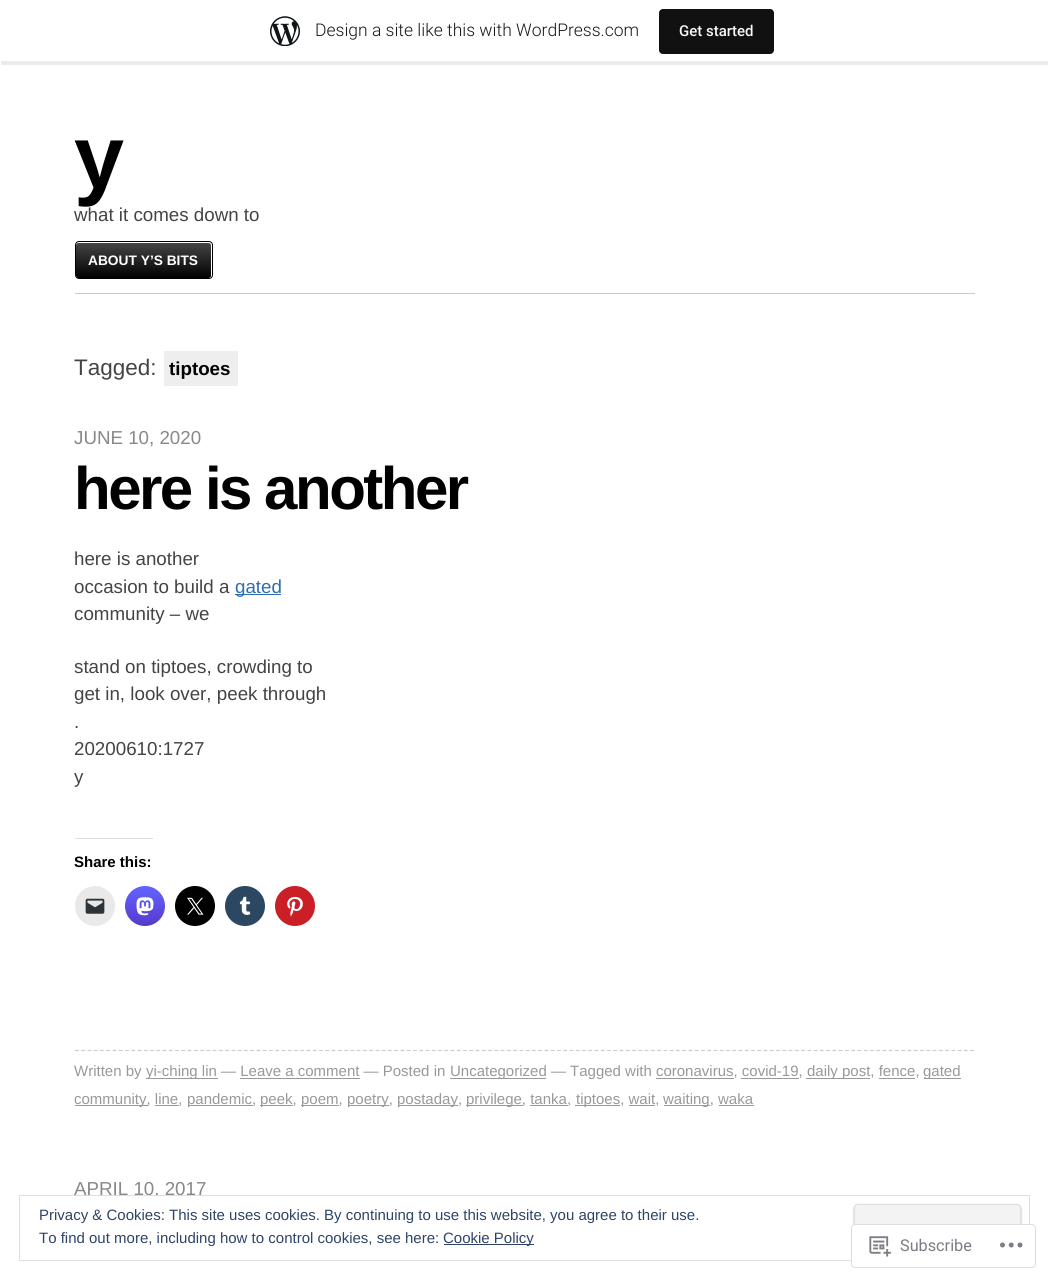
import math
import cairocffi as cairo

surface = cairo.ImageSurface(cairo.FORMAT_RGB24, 1048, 1279)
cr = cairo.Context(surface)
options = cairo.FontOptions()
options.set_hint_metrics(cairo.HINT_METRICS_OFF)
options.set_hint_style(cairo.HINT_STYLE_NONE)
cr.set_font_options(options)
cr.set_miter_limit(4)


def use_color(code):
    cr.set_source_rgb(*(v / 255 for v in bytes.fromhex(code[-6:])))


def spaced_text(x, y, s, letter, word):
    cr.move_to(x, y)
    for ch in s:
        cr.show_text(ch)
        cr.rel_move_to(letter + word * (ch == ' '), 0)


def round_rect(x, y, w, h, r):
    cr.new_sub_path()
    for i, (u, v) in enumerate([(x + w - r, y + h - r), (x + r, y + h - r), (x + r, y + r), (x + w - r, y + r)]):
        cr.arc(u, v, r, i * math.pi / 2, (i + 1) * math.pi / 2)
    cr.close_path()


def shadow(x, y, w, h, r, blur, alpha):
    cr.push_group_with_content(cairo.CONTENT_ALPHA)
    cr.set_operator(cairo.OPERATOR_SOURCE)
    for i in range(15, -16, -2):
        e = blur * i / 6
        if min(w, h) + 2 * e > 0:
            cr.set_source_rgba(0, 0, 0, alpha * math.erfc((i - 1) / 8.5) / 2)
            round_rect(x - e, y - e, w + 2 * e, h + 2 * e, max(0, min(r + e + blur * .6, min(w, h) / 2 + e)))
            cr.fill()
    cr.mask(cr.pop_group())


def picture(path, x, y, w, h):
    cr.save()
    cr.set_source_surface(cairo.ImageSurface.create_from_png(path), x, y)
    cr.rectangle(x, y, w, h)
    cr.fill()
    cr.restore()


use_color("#ffffff")
cr.paint()
cr.set_source_rgba(0, 0, 0, 0.08)
cr.new_path()
cr.move_to(1, 61)
cr.line_to(1, 65)
cr.line_to(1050, 65)
cr.line_to(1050, 4)
cr.line_to(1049, 4)
cr.line_to(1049, 61)
cr.close_path()
cr.fill()
picture("img1.png", 270, 16, 30, 30)
cr.select_font_face("Roboto Light")
cr.set_font_size(17.5)
use_color("#171717")
cr.move_to(315, 36)
cr.show_text("Design a site like this with WordPress.com")
use_color("#111111")
round_rect(659, 9, 115, 45, 4)
cr.fill()
cr.select_font_face("Roboto Medium")
cr.set_font_size(15)
use_color("#f6f7f7")
cr.move_to(679, 36)
cr.show_text("Get started")
use_color("#cccccc")
cr.rectangle(75, 293, 900, 1)
cr.fill()
cr.select_font_face("Liberation Sans", cairo.FONT_SLANT_NORMAL, cairo.FONT_WEIGHT_BOLD)
cr.set_font_size(90)
use_color("#000000")
spaced_text(74, 188, "y", -4, 0)
cr.select_font_face("Liberation Sans")
cr.set_font_size(18.75)
use_color("#444444")
cr.move_to(74, 221)
cr.show_text("what it comes down to")
gradient = cairo.LinearGradient(76, 243, 76, 278)
gradient.add_color_stop_rgba(0, 0.271, 0.271, 0.271, 1)
gradient.add_color_stop_rgba(1, 0, 0, 0, 1)
cr.set_source(gradient)
round_rect(76, 243, 135, 35, 2.5)
cr.fill()
round_rect(75.5, 241.5, 137, 37, 3.5)
use_color("#000000")
cr.set_line_width(1)
cr.stroke()
cr.select_font_face("Liberation Sans", cairo.FONT_SLANT_NORMAL, cairo.FONT_WEIGHT_BOLD)
cr.set_font_size(13.75)
use_color("#ffffff")
cr.move_to(88, 265)
cr.show_text("ABOUT Y’S BITS")
cr.select_font_face("Liberation Sans")
cr.set_font_size(22.5)
use_color("#444444")
cr.move_to(74, 375)
cr.show_text("Tagged:")
use_color("#eeeeee")
cr.rectangle(164, 351, 74, 35)
cr.fill()
cr.select_font_face("Liberation Sans", cairo.FONT_SLANT_NORMAL, cairo.FONT_WEIGHT_BOLD)
cr.set_font_size(18.75)
use_color("#000000")
cr.move_to(169, 375)
cr.show_text("tiptoes")
cr.select_font_face("Liberation Sans")
use_color("#888888")
cr.move_to(74, 444)
cr.show_text("JUNE 10, 2020")
cr.select_font_face("Liberation Sans", cairo.FONT_SLANT_NORMAL, cairo.FONT_WEIGHT_BOLD)
cr.set_font_size(60)
use_color("#000000")
spaced_text(74, 509, "here is another", -2.5, 0)
cr.select_font_face("Liberation Sans")
cr.set_font_size(18.75)
use_color("#444444")
cr.move_to(74, 565)
cr.show_text("here is another")
cr.move_to(74, 593)
cr.show_text("occasion to build a")
use_color("#2e6eb0")
cr.rectangle(235, 594, 46, 1)
cr.fill()
cr.move_to(235, 593)
cr.show_text("gated")
use_color("#444444")
cr.move_to(74, 620)
cr.show_text("community – we")
cr.move_to(74, 673)
cr.show_text("stand on tiptoes, crowding to")
cr.move_to(74, 700)
cr.show_text("get in, look over, peek through")
cr.move_to(74, 728)
cr.show_text(".")
cr.move_to(74, 755)
cr.show_text("20200610:1727")
cr.move_to(74, 783)
cr.show_text("y")
use_color("#dcdcde")
cr.rectangle(75, 838, 78, 1)
cr.fill()
cr.select_font_face("Liberation Sans", cairo.FONT_SLANT_NORMAL, cairo.FONT_WEIGHT_BOLD)
cr.set_font_size(15)
use_color("#000000")
cr.move_to(74, 867)
cr.show_text("Share this:")
use_color("#e9e9e9")
cr.new_path()
cr.arc(95, 906, 20, 0, 2 * math.pi)
cr.fill()
picture("img2.png", 85, 898, 20, 16)
gradient = cairo.LinearGradient(145, 926, 145, 886)
gradient.add_color_stop_rgba(0, 0.337, 0.227, 0.8, 1)
gradient.add_color_stop_rgba(1, 0.388, 0.392, 1, 1)
cr.set_source(gradient)
cr.arc(145, 906, 20, 0, 2 * math.pi)
cr.fill()
picture("img3.png", 136, 897, 18, 19)
use_color("#000000")
cr.arc(195, 906, 20, 0, 2 * math.pi)
cr.fill()
picture("img4.png", 187, 897, 17, 18)
use_color("#2c4762")
cr.arc(245, 906, 20, 0, 2 * math.pi)
cr.fill()
picture("img5.png", 239, 896, 12, 19)
use_color("#ca1f27")
cr.arc(295, 906, 20, 0, 2 * math.pi)
cr.fill()
picture("img6.png", 287, 896, 16, 21)
cr.new_path()
cr.move_to(75, 1050.5)
cr.line_to(975, 1050.5)
use_color("#cccccc")
cr.set_line_width(1.2)
cr.set_dash([3.75, 2.51])
cr.stroke()
cr.select_font_face("Liberation Sans")
use_color("#999999")
cr.move_to(74, 1076)
cr.show_text("Written by")
cr.rectangle(146, 1078, 72, 1)
cr.fill()
cr.move_to(146, 1076)
cr.show_text("yi-ching lin — Leave a comment — Posted in")
cr.rectangle(450, 1078, 96, 1)
cr.fill()
cr.move_to(450, 1076)
cr.show_text("Uncategorized — Tagged with coronavirus, covid-19,")
cr.rectangle(806, 1078, 64, 1)
cr.fill()
cr.move_to(807, 1076)
cr.show_text("daily post, fence,")
cr.rectangle(741, 1078, 58, 1)
cr.fill()
cr.rectangle(879, 1078, 36, 1)
cr.fill()
cr.rectangle(924, 1078, 37, 1)
cr.fill()
cr.move_to(923, 1076)
cr.show_text("gated")
cr.rectangle(240, 1078, 120, 1)
cr.fill()
cr.rectangle(75, 1105, 73, 1)
cr.fill()
cr.move_to(74, 1104)
cr.show_text("community, line,")
cr.rectangle(155, 1105, 24, 1)
cr.fill()
cr.rectangle(188, 1105, 65, 1)
cr.fill()
cr.move_to(187, 1104)
cr.show_text("pandemic,")
cr.rectangle(260, 1105, 33, 1)
cr.fill()
cr.move_to(260, 1104)
cr.show_text("peek,")
cr.rectangle(301, 1105, 38, 1)
cr.fill()
cr.move_to(301, 1104)
cr.show_text("poem,")
cr.rectangle(348, 1105, 41, 1)
cr.fill()
cr.move_to(347, 1104)
cr.show_text("poetry,")
cr.rectangle(398, 1105, 60, 1)
cr.fill()
cr.move_to(397, 1104)
cr.show_text("postaday,")
cr.rectangle(466, 1105, 57, 1)
cr.fill()
cr.move_to(466, 1104)
cr.show_text("privilege, tanka,")
cr.rectangle(530, 1105, 38, 1)
cr.fill()
cr.rectangle(575, 1105, 45, 1)
cr.fill()
cr.move_to(576, 1104)
cr.show_text("tiptoes, wait,")
cr.rectangle(656, 1078, 78, 1)
cr.fill()
cr.rectangle(629, 1105, 26, 1)
cr.fill()
cr.rectangle(664, 1105, 46, 1)
cr.fill()
cr.move_to(663, 1104)
cr.show_text("waiting, waka")
cr.rectangle(719, 1105, 35, 1)
cr.fill()
cr.set_font_size(18.75)
use_color("#888888")
cr.move_to(74, 1195)
cr.show_text("APRIL 10, 2017")
use_color("#ffffff")
cr.rectangle(156, 1196, 2, 2)
cr.fill()
cr.rectangle(19.5, 1195.5, 1010, 65)
use_color("#dedede")
cr.set_line_width(1)
cr.set_dash([])
cr.stroke()
cr.set_font_size(15)
use_color("#2e4467")
cr.move_to(39, 1220)
cr.show_text("Privacy & Cookies: This site uses cookies. By continuing to use this website, you agree to their use.")
use_color("#000000")
shadow(854, 1205, 167, 49, 4, 1, 0.3)
use_color("#f3f3f3")
round_rect(854.5, 1204.5, 166, 48, 3.5)
cr.fill_preserve()
use_color("#dedede")
cr.stroke()
use_color("#2e4467")
cr.move_to(39, 1243)
cr.show_text("To find out more, including how to control cookies, see here:")
cr.rectangle(444, 1244, 90, 1)
cr.fill()
cr.move_to(443, 1243)
cr.show_text("Cookie Policy")
cr.set_source_rgba(1, 1, 1, 0.98)
round_rect(851, 1224, 185, 44, 4)
cr.fill()
round_rect(851.5, 1224.5, 184, 43, 3.5)
cr.set_source_rgba(0.863, 0.863, 0.871, 0.98)
cr.stroke()
picture("img7.png", 869, 1236, 22, 21)
cr.select_font_face("Roboto")
cr.set_font_size(16.25)
use_color("#7a7e84")
cr.move_to(900, 1251)
cr.show_text("Subscribe")
picture("img8.png", 1000, 1242, 23, 6)
surface.write_to_png("result.png")
